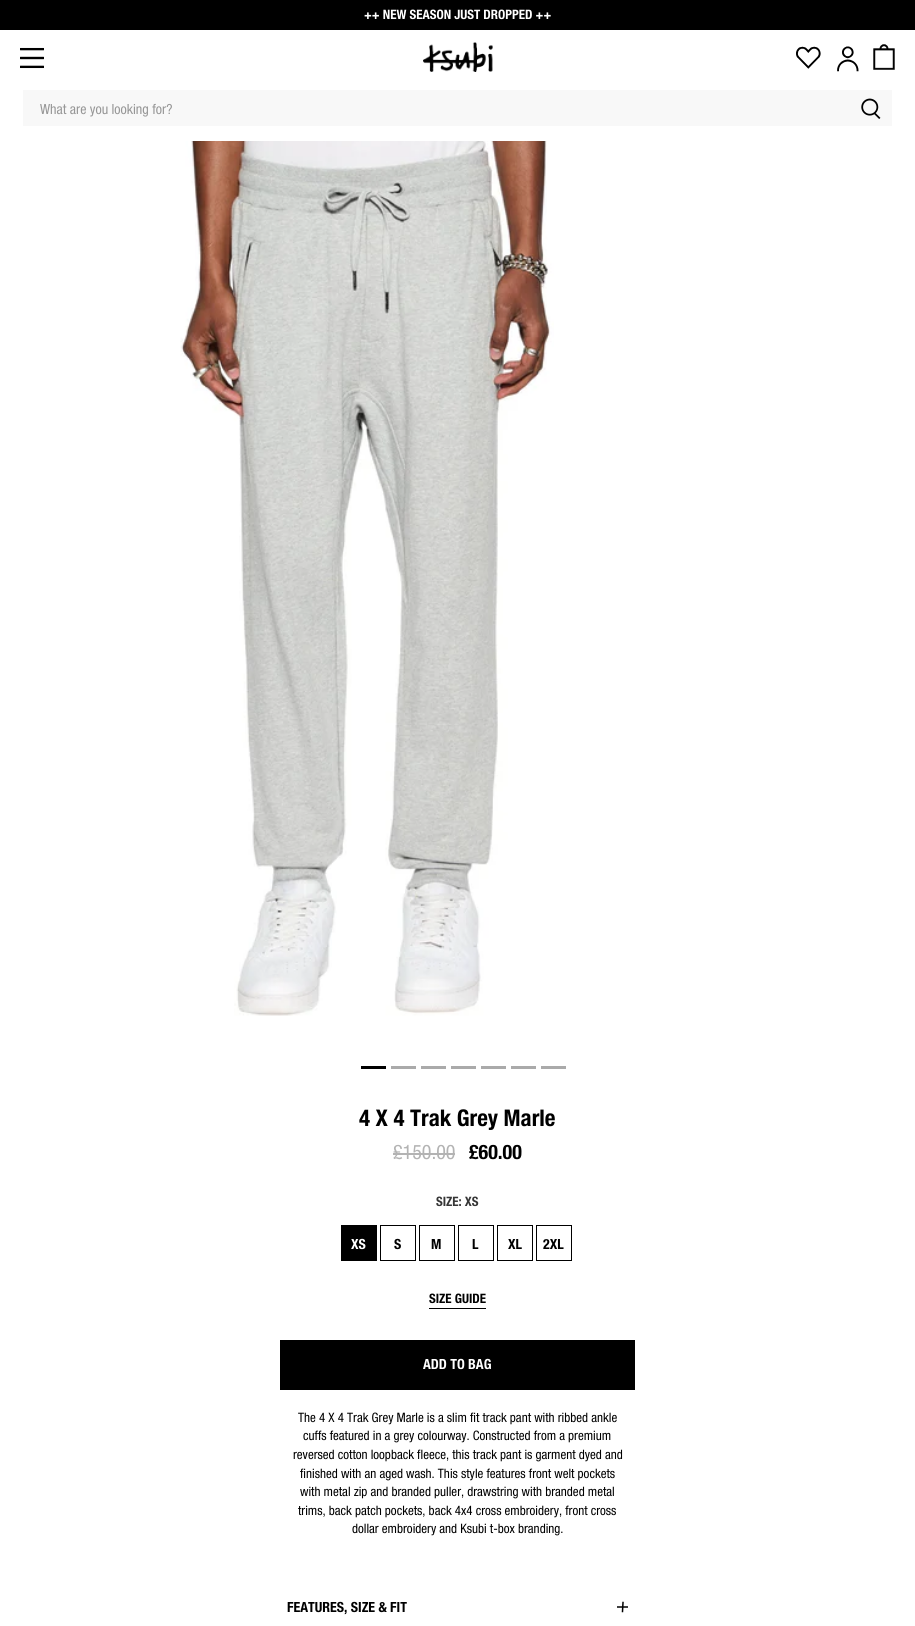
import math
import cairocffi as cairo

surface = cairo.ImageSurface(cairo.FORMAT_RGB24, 915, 1626)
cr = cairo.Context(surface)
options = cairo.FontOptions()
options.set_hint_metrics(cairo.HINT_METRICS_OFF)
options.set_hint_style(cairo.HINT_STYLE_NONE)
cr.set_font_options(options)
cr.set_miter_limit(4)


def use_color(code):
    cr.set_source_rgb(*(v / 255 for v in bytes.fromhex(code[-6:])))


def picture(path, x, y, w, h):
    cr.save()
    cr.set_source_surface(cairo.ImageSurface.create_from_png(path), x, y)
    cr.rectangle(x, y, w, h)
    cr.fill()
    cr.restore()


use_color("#ffffff")
cr.paint()
use_color("#000000")
cr.rectangle(0, 0, 915, 30)
cr.fill()
cr.select_font_face("Helvetica Neue", cairo.FONT_SLANT_NORMAL, cairo.FONT_WEIGHT_BOLD)
cr.set_font_size(13)
use_color("#ffffff")
cr.move_to(364, 19)
cr.show_text("++ NEW SEASON JUST DROPPED ++")
picture("img1.png", 20, 47, 24, 22)
picture("img2.png", 423, 42, 70, 30)
picture("img3.png", 796, 46, 25, 23)
picture("img4.png", 837, 46, 22, 26)
picture("img5.png", 873, 44, 22, 26)
use_color("#f8f8f8")
cr.rectangle(23, 90, 869, 36)
cr.fill()
picture("img6.png", 861, 98, 20, 21)
cr.select_font_face("Helvetica Neue")
cr.set_font_size(14)
use_color("#979797")
cr.move_to(40, 114)
cr.show_text("What are you looking for?")
picture("img7.png", 180, 141, 374, 875)
use_color("#000000")
cr.rectangle(361, 1066, 25, 3)
cr.fill()
use_color("#aaaaaa")
cr.rectangle(391, 1066, 25, 3)
cr.fill()
cr.rectangle(421, 1066, 25, 3)
cr.fill()
cr.rectangle(451, 1066, 25, 3)
cr.fill()
cr.rectangle(481, 1066, 25, 3)
cr.fill()
cr.rectangle(511, 1066, 25, 3)
cr.fill()
cr.rectangle(541, 1066, 25, 3)
cr.fill()
cr.select_font_face("Helvetica Neue", cairo.FONT_SLANT_NORMAL, cairo.FONT_WEIGHT_BOLD)
cr.set_font_size(23)
use_color("#000000")
cr.move_to(359, 1126)
cr.show_text("4 X 4 Trak Grey Marle")
cr.select_font_face("Helvetica Neue")
cr.set_font_size(20)
use_color("#b3b3b3")
cr.move_to(393, 1159)
cr.show_text("£150.00")
cr.rectangle(393, 1153, 62, 2)
cr.fill()
cr.select_font_face("Helvetica Neue", cairo.FONT_SLANT_NORMAL, cairo.FONT_WEIGHT_BOLD)
use_color("#000000")
cr.move_to(469, 1159)
cr.show_text("£60.00")
cr.set_font_size(13)
use_color("#363636")
cr.move_to(436, 1206)
cr.show_text("SIZE: XS")
use_color("#000000")
cr.rectangle(341, 1225, 36, 36)
cr.fill()
cr.set_font_size(14)
use_color("#ffffff")
cr.move_to(351, 1249)
cr.show_text("XS")
cr.rectangle(380.5, 1225.5, 35, 35)
use_color("#000000")
cr.set_line_width(1)
cr.stroke()
cr.move_to(394, 1249)
cr.show_text("S")
cr.rectangle(419.5, 1225.5, 35, 35)
cr.stroke()
cr.move_to(431, 1249)
cr.show_text("M")
cr.rectangle(458.5, 1225.5, 35, 35)
cr.stroke()
cr.move_to(472, 1249)
cr.show_text("L")
cr.rectangle(497.5, 1225.5, 35, 35)
cr.stroke()
cr.move_to(508, 1249)
cr.show_text("XL")
cr.rectangle(536.5, 1225.5, 35, 35)
cr.stroke()
cr.move_to(543, 1249)
cr.show_text("2XL")
cr.set_font_size(13)
cr.move_to(429, 1303)
cr.show_text("SIZE GUIDE")
cr.rectangle(429, 1308, 57, 1)
cr.fill()
cr.rectangle(280, 1340, 355, 50)
cr.fill()
cr.set_font_size(14)
use_color("#ffffff")
cr.move_to(423, 1369)
cr.show_text("ADD TO BAG")
cr.select_font_face("Helvetica Neue")
cr.set_font_size(13)
use_color("#000000")
cr.move_to(298, 1422)
cr.show_text("The 4 X 4 Trak Grey Marle is a slim fit track pant with ribbed ankle")
cr.move_to(303, 1440)
cr.show_text("cuffs featured in a grey colourway. Constructed from a premium")
cr.move_to(293, 1459)
cr.show_text("reversed cotton loopback fleece, this track pant is garment dyed and")
cr.move_to(300, 1478)
cr.show_text("finished with an aged wash. This style features front welt pockets")
cr.move_to(300, 1496)
cr.show_text("with metal zip and branded puller, drawstring with branded metal")
cr.move_to(298, 1515)
cr.show_text("trims, back patch pockets, back 4x4 cross embroidery, front cross")
cr.move_to(352, 1533)
cr.show_text("dollar embroidery and Ksubi t-box branding.")
cr.select_font_face("Helvetica Neue", cairo.FONT_SLANT_NORMAL, cairo.FONT_WEIGHT_BOLD)
cr.set_font_size(14)
cr.move_to(287, 1612)
cr.show_text("FEATURES, SIZE & FIT")
use_color("#404040")
cr.rectangle(617, 1606, 11, 2)
cr.fill()
cr.new_path()
cr.move_to(623, 1602.5)
cr.line_to(622.5, 1611.5)
use_color("#000000")
cr.set_line_width(1.5)
cr.set_line_cap(cairo.LINE_CAP_SQUARE)
cr.stroke()
surface.write_to_png("result.png")
